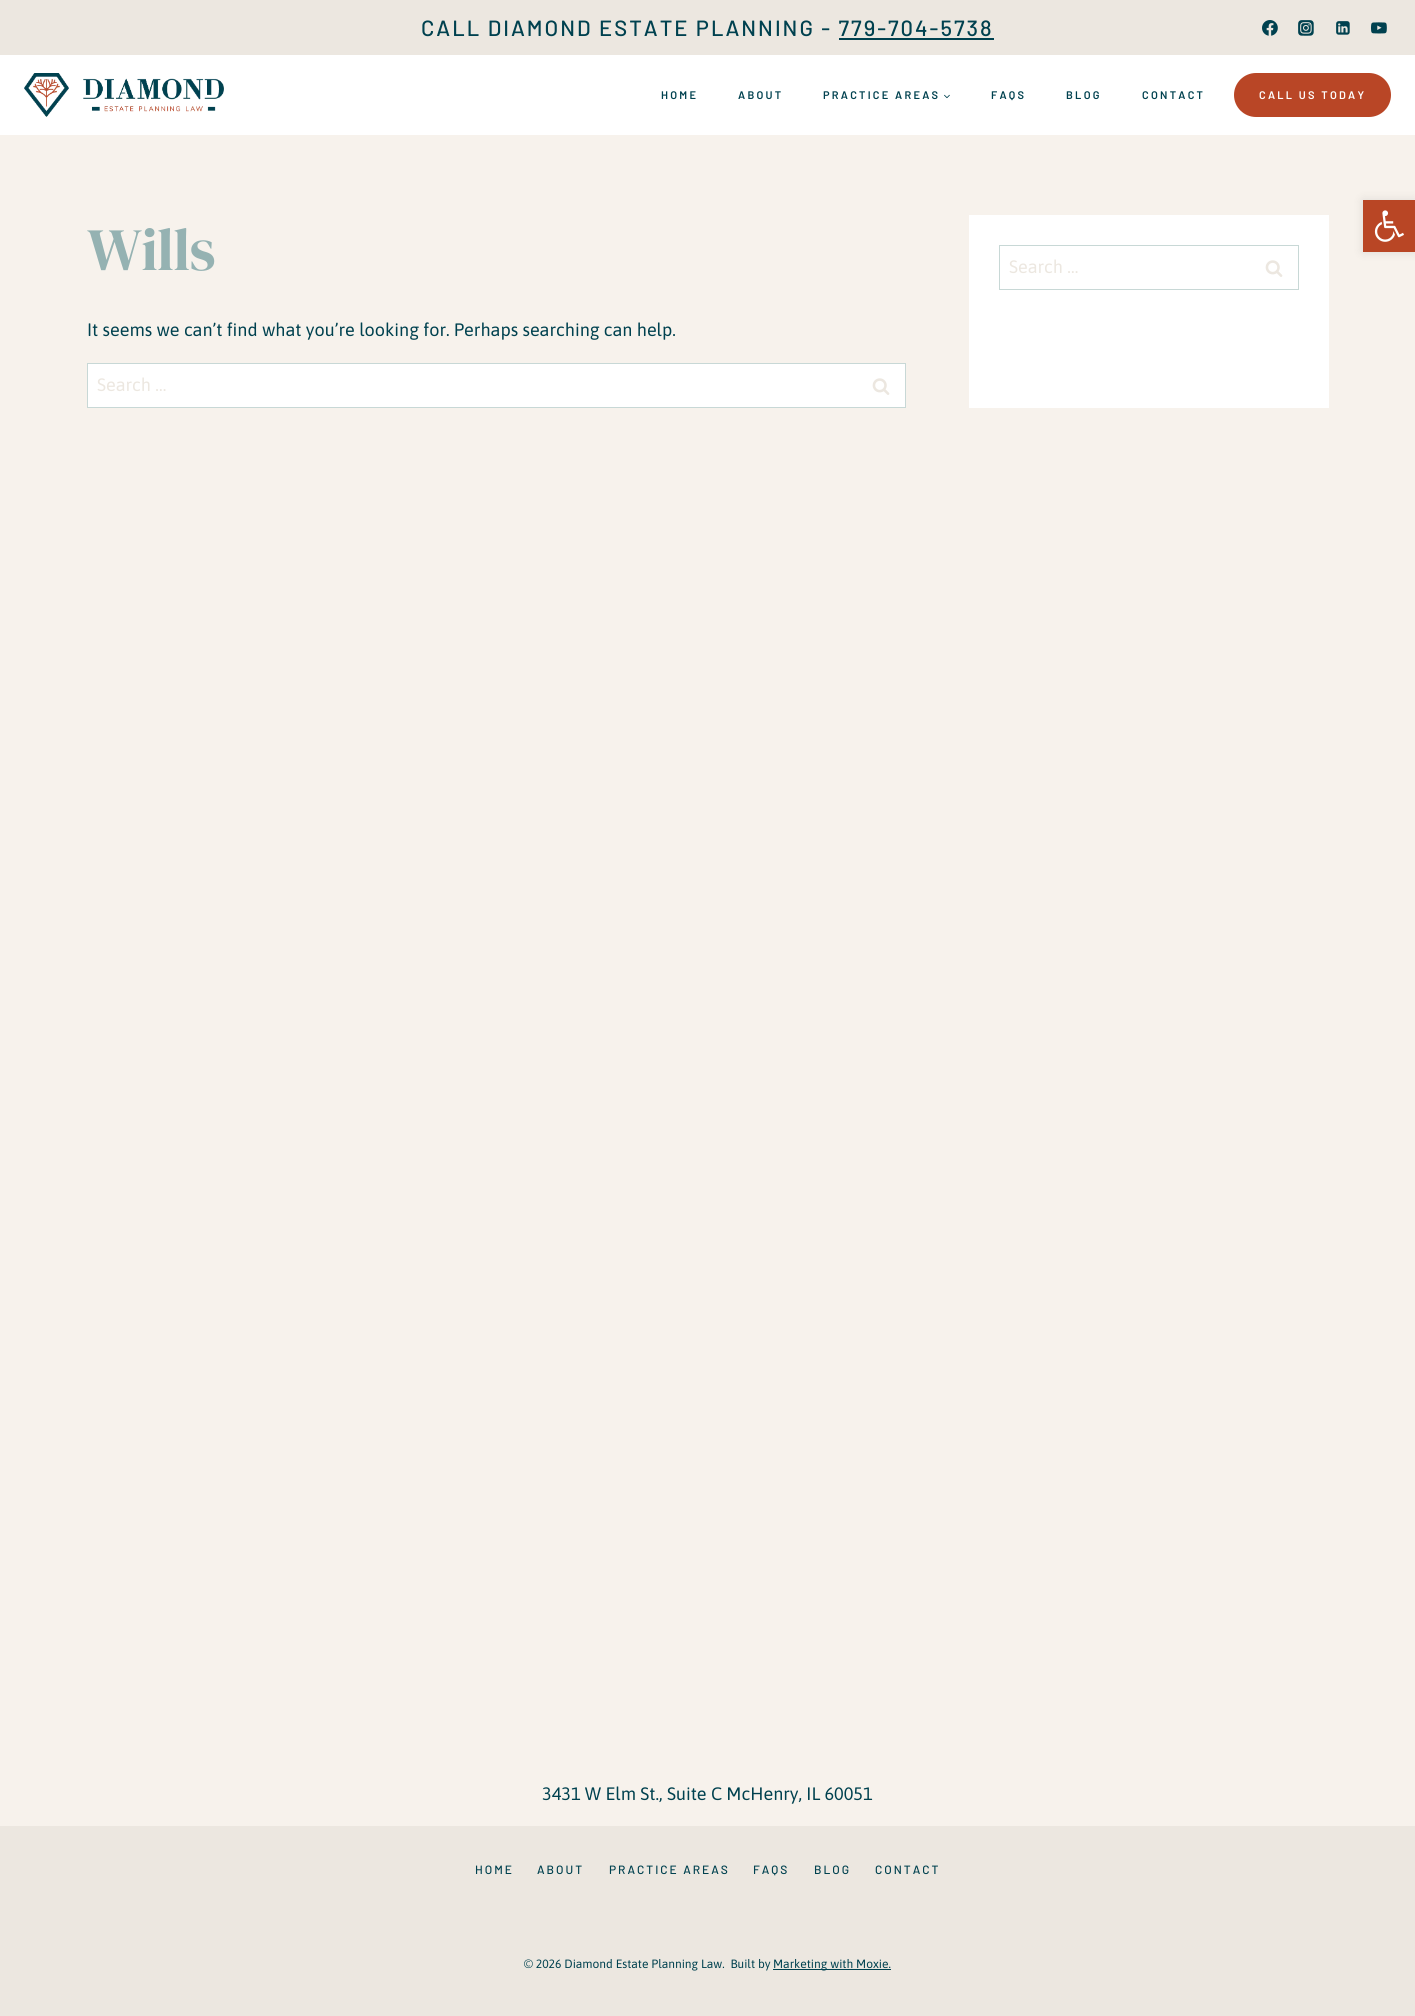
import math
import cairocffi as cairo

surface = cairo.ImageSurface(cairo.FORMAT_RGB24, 1415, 2016)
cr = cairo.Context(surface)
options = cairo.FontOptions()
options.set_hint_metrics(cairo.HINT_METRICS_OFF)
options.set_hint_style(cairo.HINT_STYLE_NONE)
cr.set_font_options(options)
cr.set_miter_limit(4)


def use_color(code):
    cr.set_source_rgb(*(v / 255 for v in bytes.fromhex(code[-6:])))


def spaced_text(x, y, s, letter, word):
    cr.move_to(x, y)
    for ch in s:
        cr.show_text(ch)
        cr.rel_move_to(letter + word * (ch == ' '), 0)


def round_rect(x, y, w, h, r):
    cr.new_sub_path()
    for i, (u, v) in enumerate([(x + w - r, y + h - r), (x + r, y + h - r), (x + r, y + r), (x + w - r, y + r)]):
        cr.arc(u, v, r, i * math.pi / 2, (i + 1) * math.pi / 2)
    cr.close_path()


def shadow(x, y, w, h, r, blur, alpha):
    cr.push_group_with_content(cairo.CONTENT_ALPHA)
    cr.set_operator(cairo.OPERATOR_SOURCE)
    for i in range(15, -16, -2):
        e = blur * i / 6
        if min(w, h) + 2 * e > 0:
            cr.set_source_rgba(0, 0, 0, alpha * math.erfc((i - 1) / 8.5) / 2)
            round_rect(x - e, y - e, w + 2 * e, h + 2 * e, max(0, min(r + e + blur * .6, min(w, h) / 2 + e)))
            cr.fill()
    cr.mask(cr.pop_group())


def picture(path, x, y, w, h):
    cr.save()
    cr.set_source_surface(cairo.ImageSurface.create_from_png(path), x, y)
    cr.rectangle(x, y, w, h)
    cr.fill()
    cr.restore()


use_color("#f7f2ec")
cr.paint()
use_color("#ffffff")
cr.rectangle(0, 55, 1415, 80)
cr.fill()
use_color("#ece7e0")
cr.rectangle(0, 0, 1415, 55)
cr.fill()
cr.select_font_face("Barlow Medium")
cr.set_font_size(22)
use_color("#00414f")
spaced_text(421, 36, "CALL DIAMOND ESTATE PLANNING - 779-704-5738", 2, 0)
cr.rectangle(839, 38, 155, 2)
cr.fill()
picture("img1.png", 1262, 20, 16, 16)
picture("img2.png", 1298, 20, 16, 16)
picture("img3.png", 1336, 21, 14, 14)
picture("img4.png", 1371, 22, 16, 12)
picture("img5.png", 24, 73, 200, 44)
cr.select_font_face("Barlow SemiBold")
cr.set_font_size(11)
spaced_text(661, 99, "HOME", 2.25, 0)
spaced_text(738, 99, "ABOUT", 2.25, 0)
spaced_text(823, 99, "PRACTICE AREAS", 2.25, 0)
picture("img6.png", 944, 94, 6, 5)
spaced_text(991, 99, "FAQS", 2.25, 0)
spaced_text(1066, 99, "BLOG", 2.25, 0)
spaced_text(1142, 99, "CONTACT", 2.25, 0)
use_color("#b94626")
round_rect(1234, 73, 157, 44, 22)
cr.fill()
use_color("#ffffff")
spaced_text(1259, 99, "CALL US TODAY", 2.25, 0)
cr.select_font_face("DM Serif Display")
cr.set_font_size(60)
use_color("#95b2b2")
spaced_text(87, 270, "Wills", -1, 0)
cr.select_font_face("Asap")
cr.set_font_size(18)
use_color("#00414f")
cr.move_to(87, 336)
cr.show_text("It seems we can’t find what you’re looking for. Perhaps searching can help.")
use_color("#ffffff")
cr.rectangle(87.5, 363.5, 818, 44)
cr.fill_preserve()
use_color("#c8d8d6")
cr.set_line_width(1)
cr.stroke()
use_color("#ece7e0")
cr.move_to(97, 391)
cr.show_text("Search …")
picture("img7.png", 872, 378, 18, 17)
use_color("#ffffff")
cr.rectangle(969, 215, 360, 193)
cr.fill()
cr.rectangle(999.5, 245.5, 299, 44)
use_color("#c8d8d6")
cr.stroke()
use_color("#ece7e0")
cr.move_to(1009, 273)
cr.show_text("Search …")
picture("img7.png", 1265, 260, 18, 17)
use_color("#00414f")
cr.move_to(542, 1800)
cr.show_text("3431 W Elm St., Suite C McHenry, IL 60051")
use_color("#ece7e0")
cr.rectangle(0, 1826, 1415, 190)
cr.fill()
cr.select_font_face("Barlow Medium")
cr.set_font_size(12)
use_color("#00414f")
spaced_text(475, 1874, "HOME", 2, 0)
spaced_text(537, 1874, "ABOUT", 2, 0)
spaced_text(609, 1874, "PRACTICE AREAS", 2, 0)
spaced_text(753, 1874, "FAQS", 2, 0)
spaced_text(814, 1874, "BLOG", 2, 0)
spaced_text(875, 1874, "CONTACT", 2, 0)
cr.select_font_face("Asap")
cr.move_to(524, 1968)
cr.show_text("© 2026 Diamond Estate Planning Law.  Built by")
cr.rectangle(773, 1969, 118, 1)
cr.fill()
cr.move_to(773, 1968)
cr.show_text("Marketing with Moxie.")
use_color("#000000")
shadow(1363, 200, 52, 52, 0, 5, 0.1)
use_color("#b94625")
cr.rectangle(1363, 200, 52, 52)
cr.fill()
picture("img8.png", 1374, 210, 30, 32)
surface.write_to_png("result.png")
